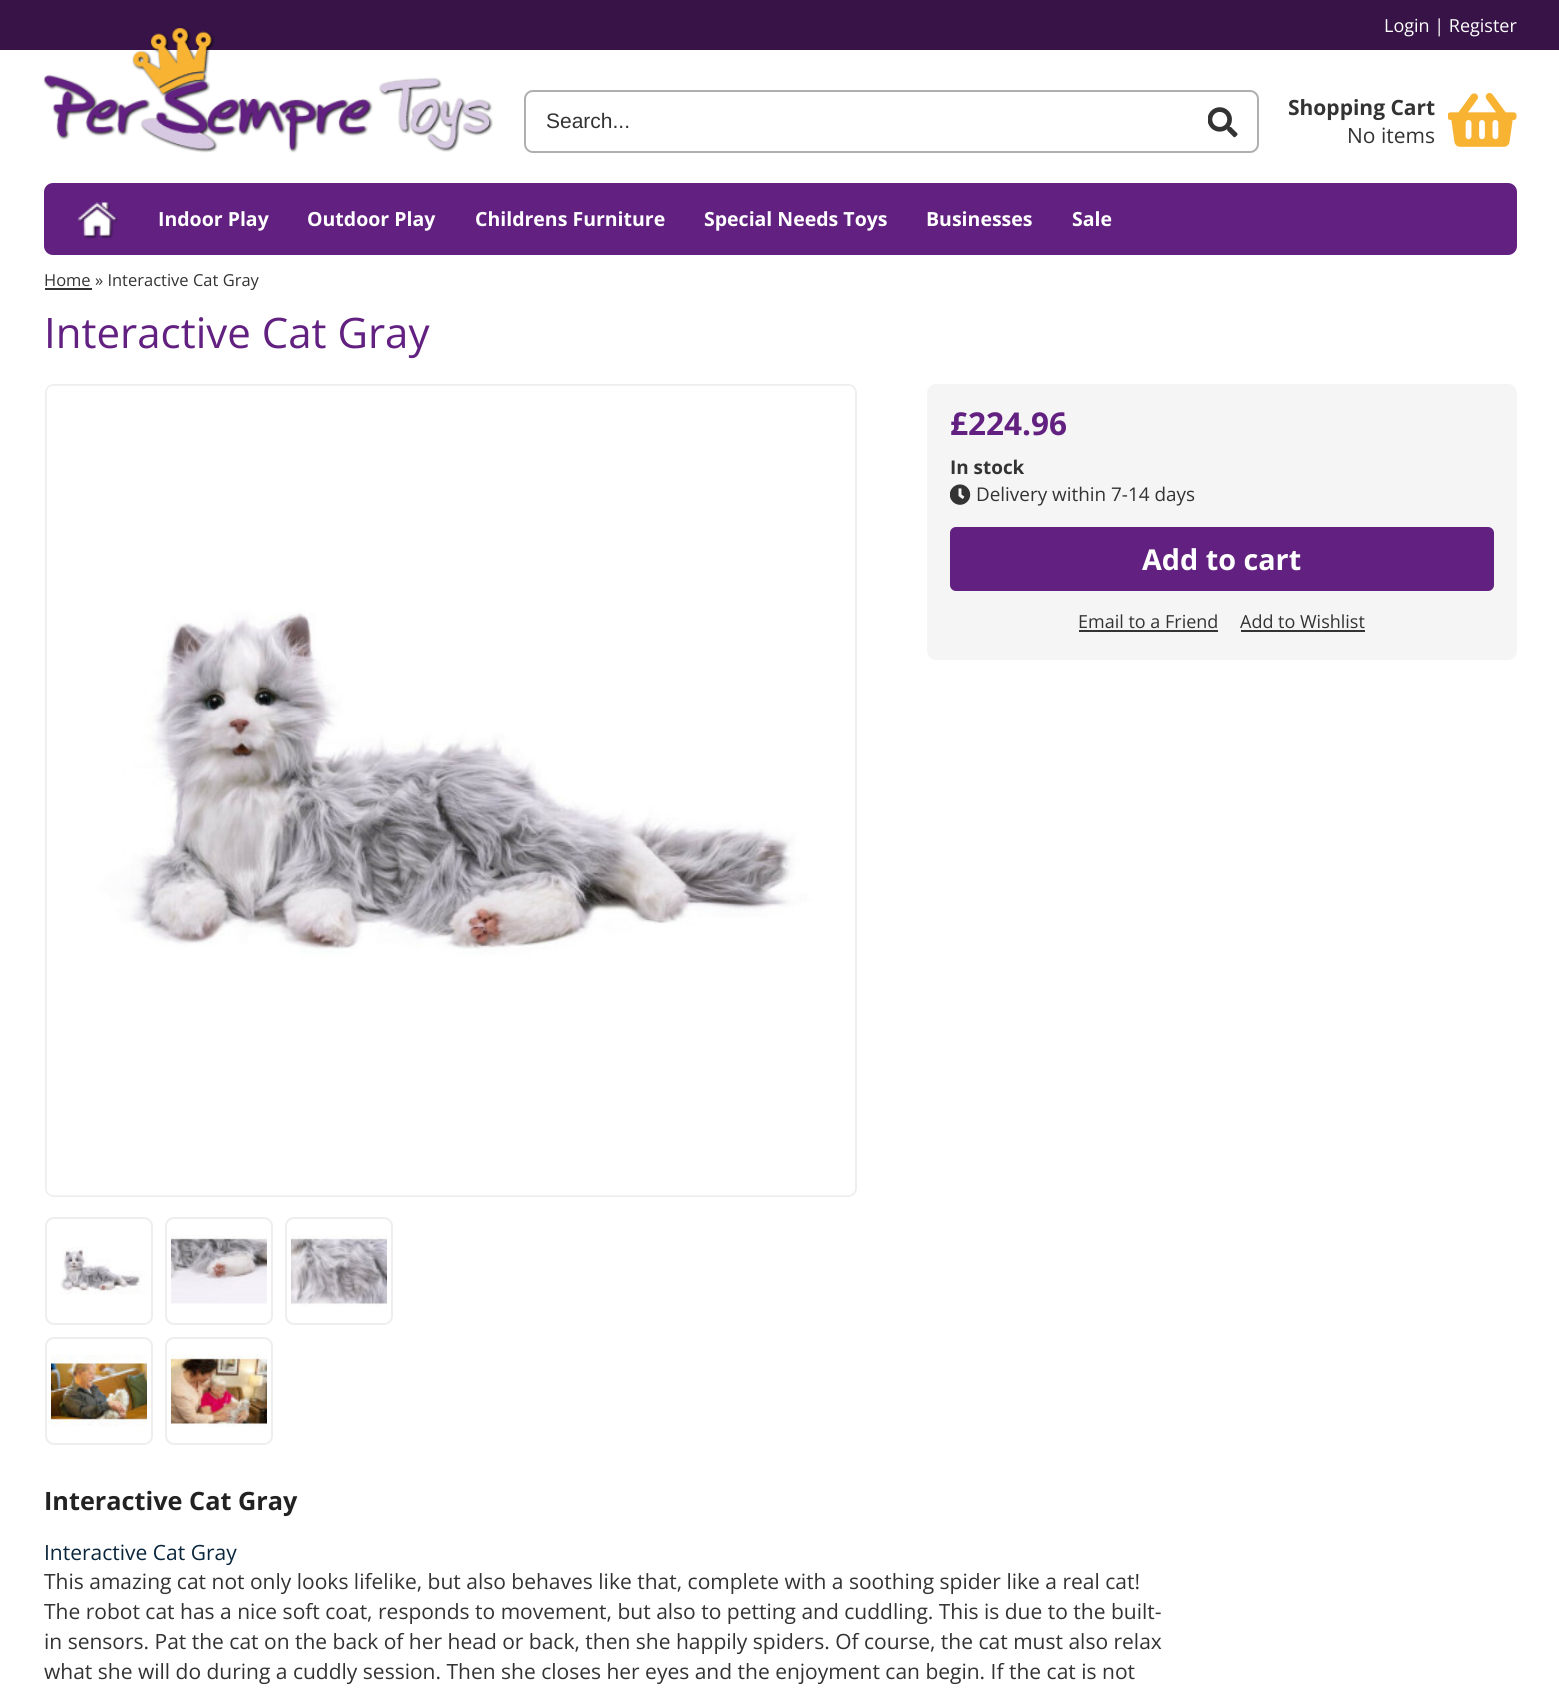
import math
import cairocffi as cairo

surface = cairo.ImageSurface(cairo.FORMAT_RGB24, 1559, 1691)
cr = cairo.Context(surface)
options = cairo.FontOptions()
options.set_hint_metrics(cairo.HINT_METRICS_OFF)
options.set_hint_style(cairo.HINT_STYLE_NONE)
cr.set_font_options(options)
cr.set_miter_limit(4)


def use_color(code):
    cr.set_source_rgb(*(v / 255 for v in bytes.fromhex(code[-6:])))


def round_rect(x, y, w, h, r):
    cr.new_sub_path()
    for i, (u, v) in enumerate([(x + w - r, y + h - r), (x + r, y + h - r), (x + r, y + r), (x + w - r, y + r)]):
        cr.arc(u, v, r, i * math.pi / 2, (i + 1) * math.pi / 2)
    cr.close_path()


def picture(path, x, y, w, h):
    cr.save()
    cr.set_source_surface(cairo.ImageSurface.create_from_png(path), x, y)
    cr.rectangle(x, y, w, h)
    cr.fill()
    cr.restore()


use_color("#ffffff")
cr.paint()
use_color("#371347")
cr.rectangle(0, 0, 1559, 50)
cr.fill()
cr.select_font_face("Open Sans")
cr.set_font_size(18)
use_color("#ffffff")
cr.move_to(1384, 32)
cr.show_text("Login | Register")
picture("img1.png", 43, 27, 450, 126)
round_rect(525, 91, 733, 61, 8)
use_color("#afafaf")
cr.stroke()
cr.select_font_face("Liberation Sans")
cr.set_font_size(21)
use_color("#333333")
cr.move_to(546, 128)
cr.show_text("Search...")
picture("img2.png", 1208, 107, 30, 31)
cr.select_font_face("Open Sans", cairo.FONT_SLANT_NORMAL, cairo.FONT_WEIGHT_BOLD)
cr.move_to(1288, 115)
cr.show_text("Shopping Cart")
cr.select_font_face("Open Sans")
cr.move_to(1347, 143)
cr.show_text("No items")
picture("img3.png", 1448, 93, 69, 54)
use_color("#622181")
round_rect(44, 183, 1473, 72, 9)
cr.fill()
picture("img4.png", 78, 202, 40, 37)
cr.select_font_face("Open Sans", cairo.FONT_SLANT_NORMAL, cairo.FONT_WEIGHT_BOLD)
cr.set_font_size(19.5)
use_color("#ffffff")
cr.move_to(158, 226)
cr.show_text("Indoor Play")
cr.move_to(307, 226)
cr.show_text("Outdoor Play")
cr.move_to(475, 226)
cr.show_text("Childrens Furniture")
cr.move_to(704, 226)
cr.show_text("Special Needs Toys")
cr.move_to(926, 226)
cr.show_text("Businesses")
cr.move_to(1072, 226)
cr.show_text("Sale")
use_color("#333333")
cr.rectangle(45, 288, 47, 2)
cr.fill()
cr.select_font_face("Open Sans")
cr.set_font_size(16.5)
cr.move_to(44, 286)
cr.show_text("Home » Interactive Cat Gray")
cr.set_font_size(42)
use_color("#622181")
cr.move_to(44, 348)
cr.show_text("Interactive Cat Gray")
round_rect(46, 385, 810, 811, 8)
use_color("#eeeeee")
cr.stroke()
picture("img5.png", 46, 385, 809, 811)
round_rect(46, 1218, 106, 106, 8)
cr.stroke()
picture("img6.png", 60, 1247, 85, 48)
round_rect(166, 1218, 106, 106, 8)
cr.stroke()
picture("img7.png", 171, 1235, 96, 69)
round_rect(286, 1218, 106, 106, 8)
cr.stroke()
picture("img8.png", 291, 1235, 96, 72)
round_rect(46, 1338, 106, 106, 8)
cr.stroke()
picture("img9.png", 51, 1354, 96, 73)
round_rect(166, 1338, 106, 106, 8)
cr.stroke()
picture("img10.png", 171, 1354, 96, 73)
use_color("#f5f5f5")
round_rect(927, 384, 590, 276, 9)
cr.fill()
cr.select_font_face("Open Sans", cairo.FONT_SLANT_NORMAL, cairo.FONT_WEIGHT_BOLD)
cr.set_font_size(31.5)
use_color("#622181")
cr.move_to(950, 435)
cr.show_text("£224.96")
cr.set_font_size(18.9)
use_color("#333333")
cr.move_to(950, 474)
cr.show_text("In stock")
picture("img11.png", 950, 484, 21, 21)
cr.select_font_face("Open Sans")
cr.move_to(976, 501)
cr.show_text("Delivery within 7-14 days")
use_color("#622181")
round_rect(950, 527, 544, 64, 6)
cr.fill()
cr.select_font_face("Open Sans", cairo.FONT_SLANT_NORMAL, cairo.FONT_WEIGHT_BOLD)
cr.set_font_size(28.75)
use_color("#ffffff")
cr.move_to(1142, 570)
cr.show_text("Add to cart")
cr.select_font_face("Open Sans")
cr.set_font_size(18)
use_color("#333333")
cr.move_to(1078, 628)
cr.show_text("Email to a Friend")
cr.rectangle(1079, 630, 139, 2)
cr.fill()
cr.move_to(1240, 628)
cr.show_text("Add to Wishlist")
cr.rectangle(1241, 630, 124, 2)
cr.fill()
cr.select_font_face("Open Sans", cairo.FONT_SLANT_NORMAL, cairo.FONT_WEIGHT_BOLD)
cr.set_font_size(25.25)
use_color("#222222")
cr.move_to(44, 1510)
cr.show_text("Interactive Cat Gray")
cr.select_font_face("Open Sans")
cr.set_font_size(21)
use_color("#0a263c")
cr.move_to(44, 1560)
cr.show_text("Interactive Cat Gray")
use_color("#333333")
cr.move_to(44, 1589)
cr.show_text("This amazing cat not only looks lifelike, but also behaves like that, complete with a soothing spider like a real cat!")
cr.move_to(44, 1619)
cr.show_text("The robot cat has a nice soft coat, responds to movement, but also to petting and cuddling. This is due to the built-")
cr.move_to(44, 1649)
cr.show_text("in sensors. Pat the cat on the back of her head or back, then she happily spiders. Of course, the cat must also relax")
cr.move_to(44, 1679)
cr.show_text("what she will do during a cuddly session. Then she closes her eyes and the enjoyment can begin. If the cat is not")
surface.write_to_png("result.png")
